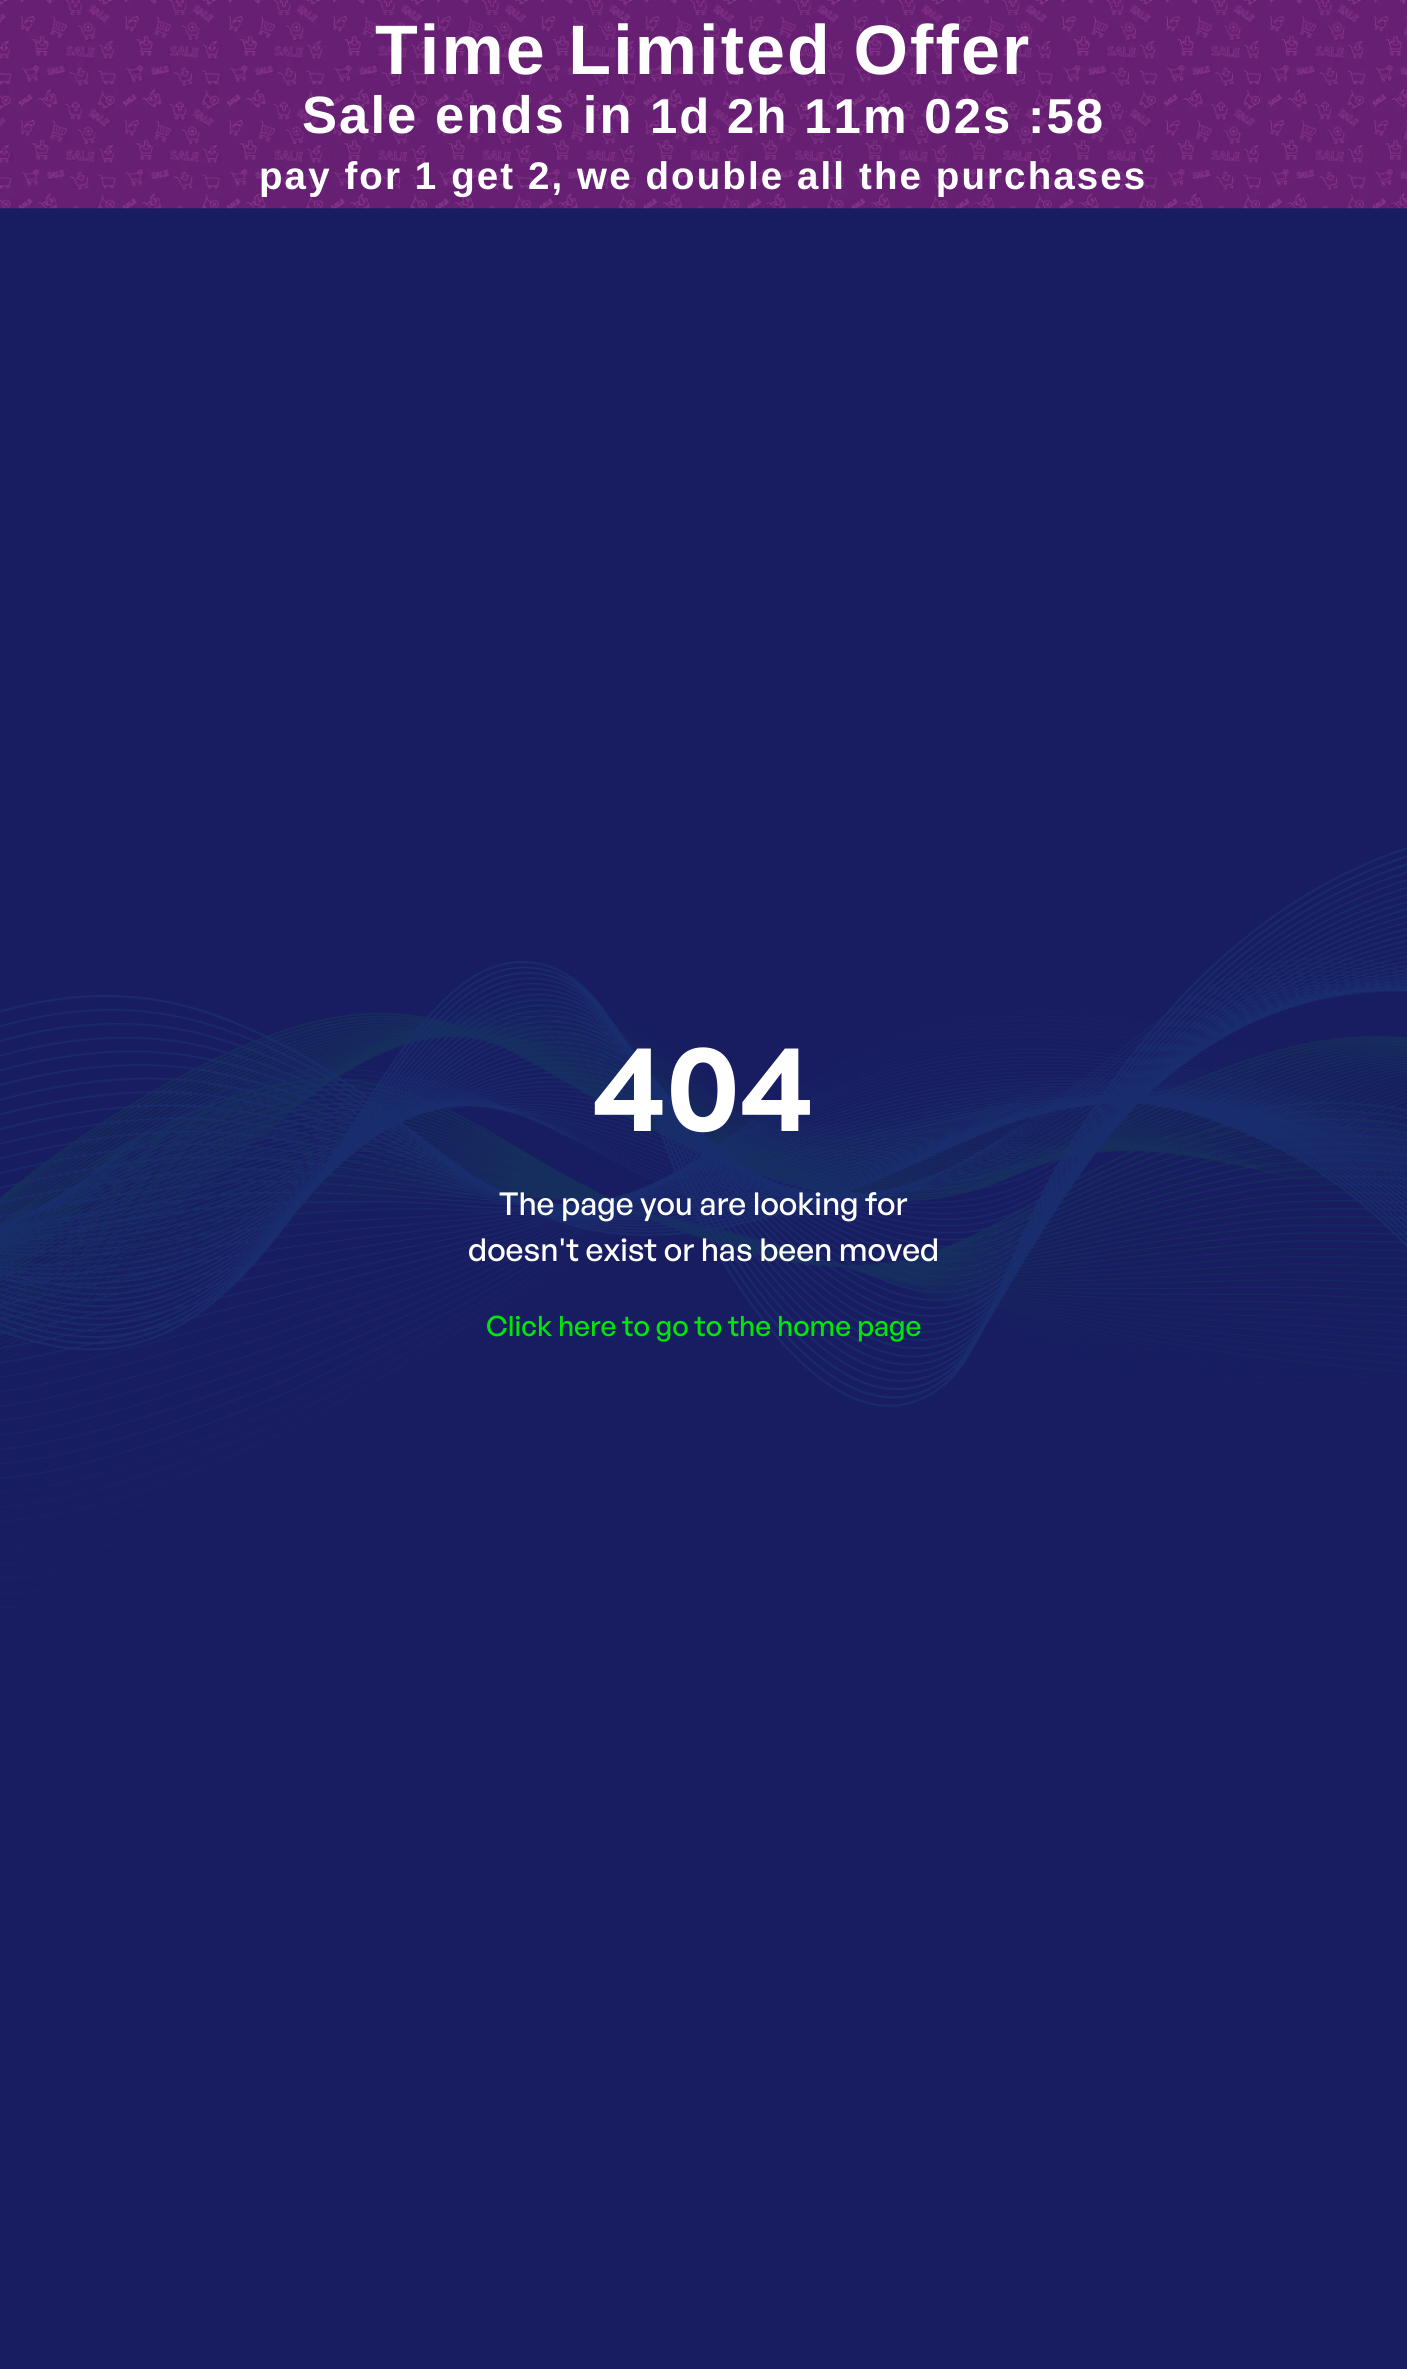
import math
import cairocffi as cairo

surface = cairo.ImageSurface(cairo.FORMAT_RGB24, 1407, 2369)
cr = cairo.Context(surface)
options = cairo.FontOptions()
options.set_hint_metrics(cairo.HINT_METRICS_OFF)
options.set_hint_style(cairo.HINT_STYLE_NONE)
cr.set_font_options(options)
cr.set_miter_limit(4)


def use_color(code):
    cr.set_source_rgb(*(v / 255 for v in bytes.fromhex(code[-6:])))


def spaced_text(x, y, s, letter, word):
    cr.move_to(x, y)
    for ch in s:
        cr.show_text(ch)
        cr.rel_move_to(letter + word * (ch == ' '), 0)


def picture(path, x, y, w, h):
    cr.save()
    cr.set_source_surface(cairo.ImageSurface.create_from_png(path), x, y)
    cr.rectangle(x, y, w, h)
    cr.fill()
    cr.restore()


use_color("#272c7d")
cr.paint()
picture("img1.png", 0, 208, 1407, 2161)
picture("img2.png", 0, 0, 1407, 209)
cr.select_font_face("Liberation Sans", cairo.FONT_SLANT_NORMAL, cairo.FONT_WEIGHT_BOLD)
cr.set_font_size(70)
use_color("#ffffff")
spaced_text(375, 74, "Time Limited Offer", 2.1, 0)
cr.set_font_size(52.5)
spaced_text(302, 133, "Sale ends in", 2.1, 0)
cr.set_font_size(49)
spaced_text(650, 133, "1d 2h 11m 02s :58", 2.1, 0)
cr.set_font_size(38.5)
spaced_text(259, 189, "pay for 1 get 2, we double all the purchases", 2.1, 0)
cr.select_font_face("General Sans SemiBold")
cr.set_font_size(122)
cr.move_to(593, 1131)
cr.show_text("404")
cr.select_font_face("General Sans Medium")
cr.set_font_size(31.5)
cr.move_to(499, 1215)
cr.show_text("The page you are looking for")
cr.move_to(468, 1261)
cr.show_text("doesn't exist or has been moved")
cr.set_font_size(28)
use_color("#00e50a")
cr.move_to(486, 1336)
cr.show_text("Click here to go to the home page")
surface.write_to_png("result.png")
